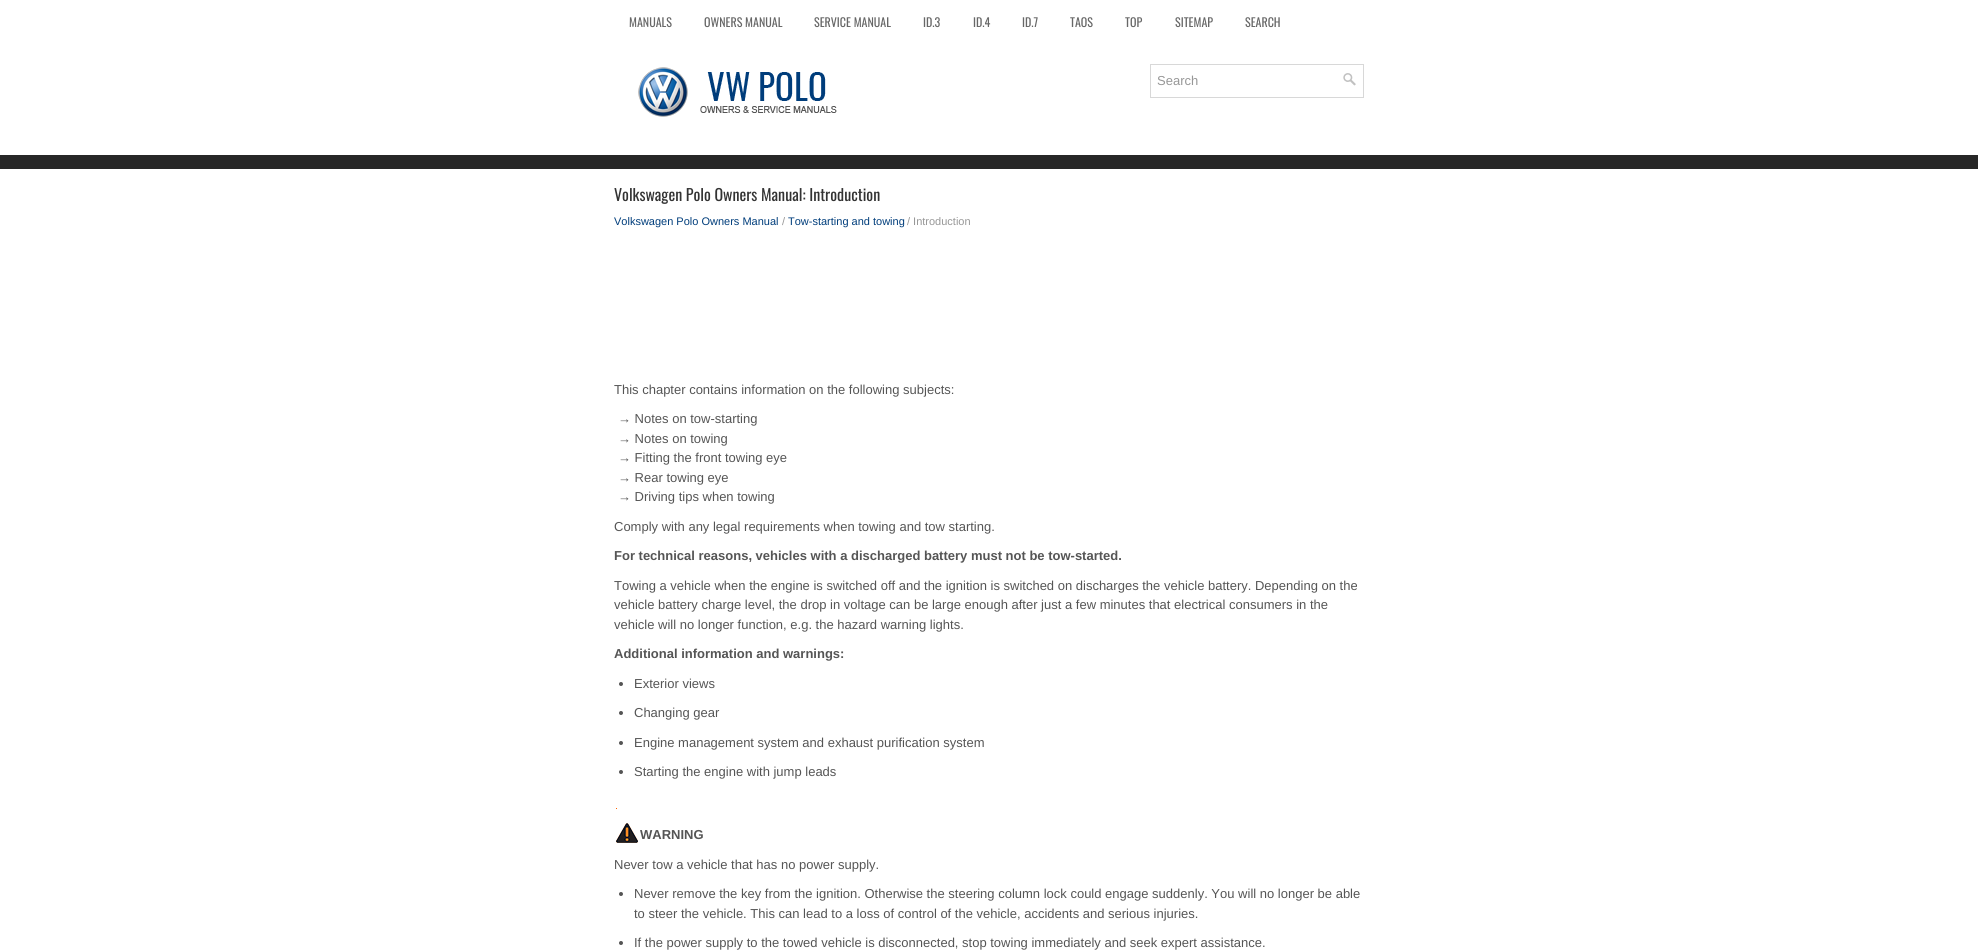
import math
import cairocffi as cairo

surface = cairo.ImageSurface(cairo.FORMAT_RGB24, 1978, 951)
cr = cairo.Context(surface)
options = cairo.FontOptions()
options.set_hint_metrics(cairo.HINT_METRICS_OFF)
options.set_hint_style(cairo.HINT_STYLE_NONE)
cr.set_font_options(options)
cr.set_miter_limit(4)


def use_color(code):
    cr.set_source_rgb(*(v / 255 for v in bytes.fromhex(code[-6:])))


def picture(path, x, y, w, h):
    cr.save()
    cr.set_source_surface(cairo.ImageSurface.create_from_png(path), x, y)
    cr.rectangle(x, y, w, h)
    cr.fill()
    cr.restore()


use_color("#ffffff")
cr.paint()
use_color("#272727")
cr.rectangle(0, 155, 1978, 14)
cr.fill()
cr.select_font_face("Oswald")
cr.set_font_size(12)
use_color("#676767")
cr.move_to(629, 27)
cr.show_text("MANUALS")
cr.move_to(704, 27)
cr.show_text("OWNERS MANUAL")
cr.move_to(814, 27)
cr.show_text("SERVICE MANUAL")
cr.move_to(923, 27)
cr.show_text("ID.3")
cr.move_to(973, 27)
cr.show_text("ID.4")
cr.move_to(1022, 27)
cr.show_text("ID.7")
cr.move_to(1070, 27)
cr.show_text("TAOS")
cr.move_to(1125, 27)
cr.show_text("TOP")
cr.move_to(1175, 27)
cr.show_text("SITEMAP")
cr.move_to(1245, 27)
cr.show_text("SEARCH")
picture("img1.png", 638, 67, 199, 50)
cr.rectangle(1150.5, 64.5, 213, 33)
use_color("#d8d8d8")
cr.set_line_width(1)
cr.stroke()
cr.select_font_face("Liberation Sans")
cr.set_font_size(13)
use_color("#979797")
cr.move_to(1157, 85)
cr.show_text("Search")
picture("img2.png", 1343, 73, 13, 13)
cr.select_font_face("Oswald")
cr.set_font_size(16)
use_color("#333333")
cr.move_to(614, 201)
cr.show_text("Volkswagen Polo Owners Manual: Introduction")
cr.select_font_face("Liberation Sans")
cr.set_font_size(11)
use_color("#003d7b")
cr.move_to(614, 225)
cr.show_text("Volkswagen Polo Owners Manual")
use_color("#979797")
cr.move_to(782, 225)
cr.show_text("/")
use_color("#003d7b")
cr.move_to(788, 225)
cr.show_text("Tow-starting and towing")
use_color("#979797")
cr.move_to(907, 225)
cr.show_text("/ Introduction")
cr.set_font_size(13)
use_color("#555555")
cr.move_to(614, 394)
cr.show_text("This chapter contains information on the following subjects:")
cr.move_to(618, 423)
cr.show_text("→ Notes on tow-starting")
cr.move_to(618, 443)
cr.show_text("→ Notes on towing")
cr.move_to(618, 462)
cr.show_text("→ Fitting the front towing eye")
cr.move_to(618, 482)
cr.show_text("→ Rear towing eye")
cr.move_to(618, 501)
cr.show_text("→ Driving tips when towing")
cr.move_to(614, 531)
cr.show_text("Comply with any legal requirements when towing and tow starting.")
cr.select_font_face("Liberation Sans", cairo.FONT_SLANT_NORMAL, cairo.FONT_WEIGHT_BOLD)
cr.move_to(614, 560)
cr.show_text("For technical reasons, vehicles with a discharged battery must not be tow-started.")
cr.select_font_face("Liberation Sans")
cr.move_to(614, 590)
cr.show_text("Towing a vehicle when the engine is switched off and the ignition is switched on discharges the vehicle battery. Depending on the")
cr.move_to(614, 609)
cr.show_text("vehicle battery charge level, the drop in voltage can be large enough after just a few minutes that electrical consumers in the")
cr.move_to(614, 629)
cr.show_text("vehicle will no longer function, e.g. the hazard warning lights.")
cr.select_font_face("Liberation Sans", cairo.FONT_SLANT_NORMAL, cairo.FONT_WEIGHT_BOLD)
cr.move_to(614, 658)
cr.show_text("Additional information and warnings:")
cr.new_path()
cr.arc(621, 684, 2, 0, 2 * math.pi)
cr.fill()
cr.select_font_face("Liberation Sans")
cr.move_to(634, 688)
cr.show_text("Exterior views")
cr.new_path()
cr.arc(621, 713, 2, 0, 2 * math.pi)
cr.fill()
cr.move_to(634, 717)
cr.show_text("Changing gear")
cr.new_path()
cr.arc(621, 743, 2, 0, 2 * math.pi)
cr.fill()
cr.move_to(634, 747)
cr.show_text("Engine management system and exhaust purification system")
cr.new_path()
cr.arc(621, 772, 2, 0, 2 * math.pi)
cr.fill()
cr.move_to(634, 776)
cr.show_text("Starting the engine with jump leads")
use_color("#ff6500")
cr.rectangle(616, 808, 1, 1)
cr.fill()
picture("img3.png", 616, 823, 22, 20)
cr.select_font_face("Liberation Sans", cairo.FONT_SLANT_NORMAL, cairo.FONT_WEIGHT_BOLD)
use_color("#555555")
cr.move_to(640, 839)
cr.show_text("WARNING")
cr.select_font_face("Liberation Sans")
cr.move_to(614, 869)
cr.show_text("Never tow a vehicle that has no power supply.")
cr.new_path()
cr.arc(621, 894, 2, 0, 2 * math.pi)
cr.fill()
cr.move_to(634, 898)
cr.show_text("Never remove the key from the ignition. Otherwise the steering column lock could engage suddenly. You will no longer be able")
cr.move_to(634, 918)
cr.show_text("to steer the vehicle. This can lead to a loss of control of the vehicle, accidents and serious injuries.")
cr.new_path()
cr.arc(621, 943, 2, 0, 2 * math.pi)
cr.fill()
cr.move_to(634, 947)
cr.show_text("If the power supply to the towed vehicle is disconnected, stop towing immediately and seek expert assistance.")
surface.write_to_png("result.png")
